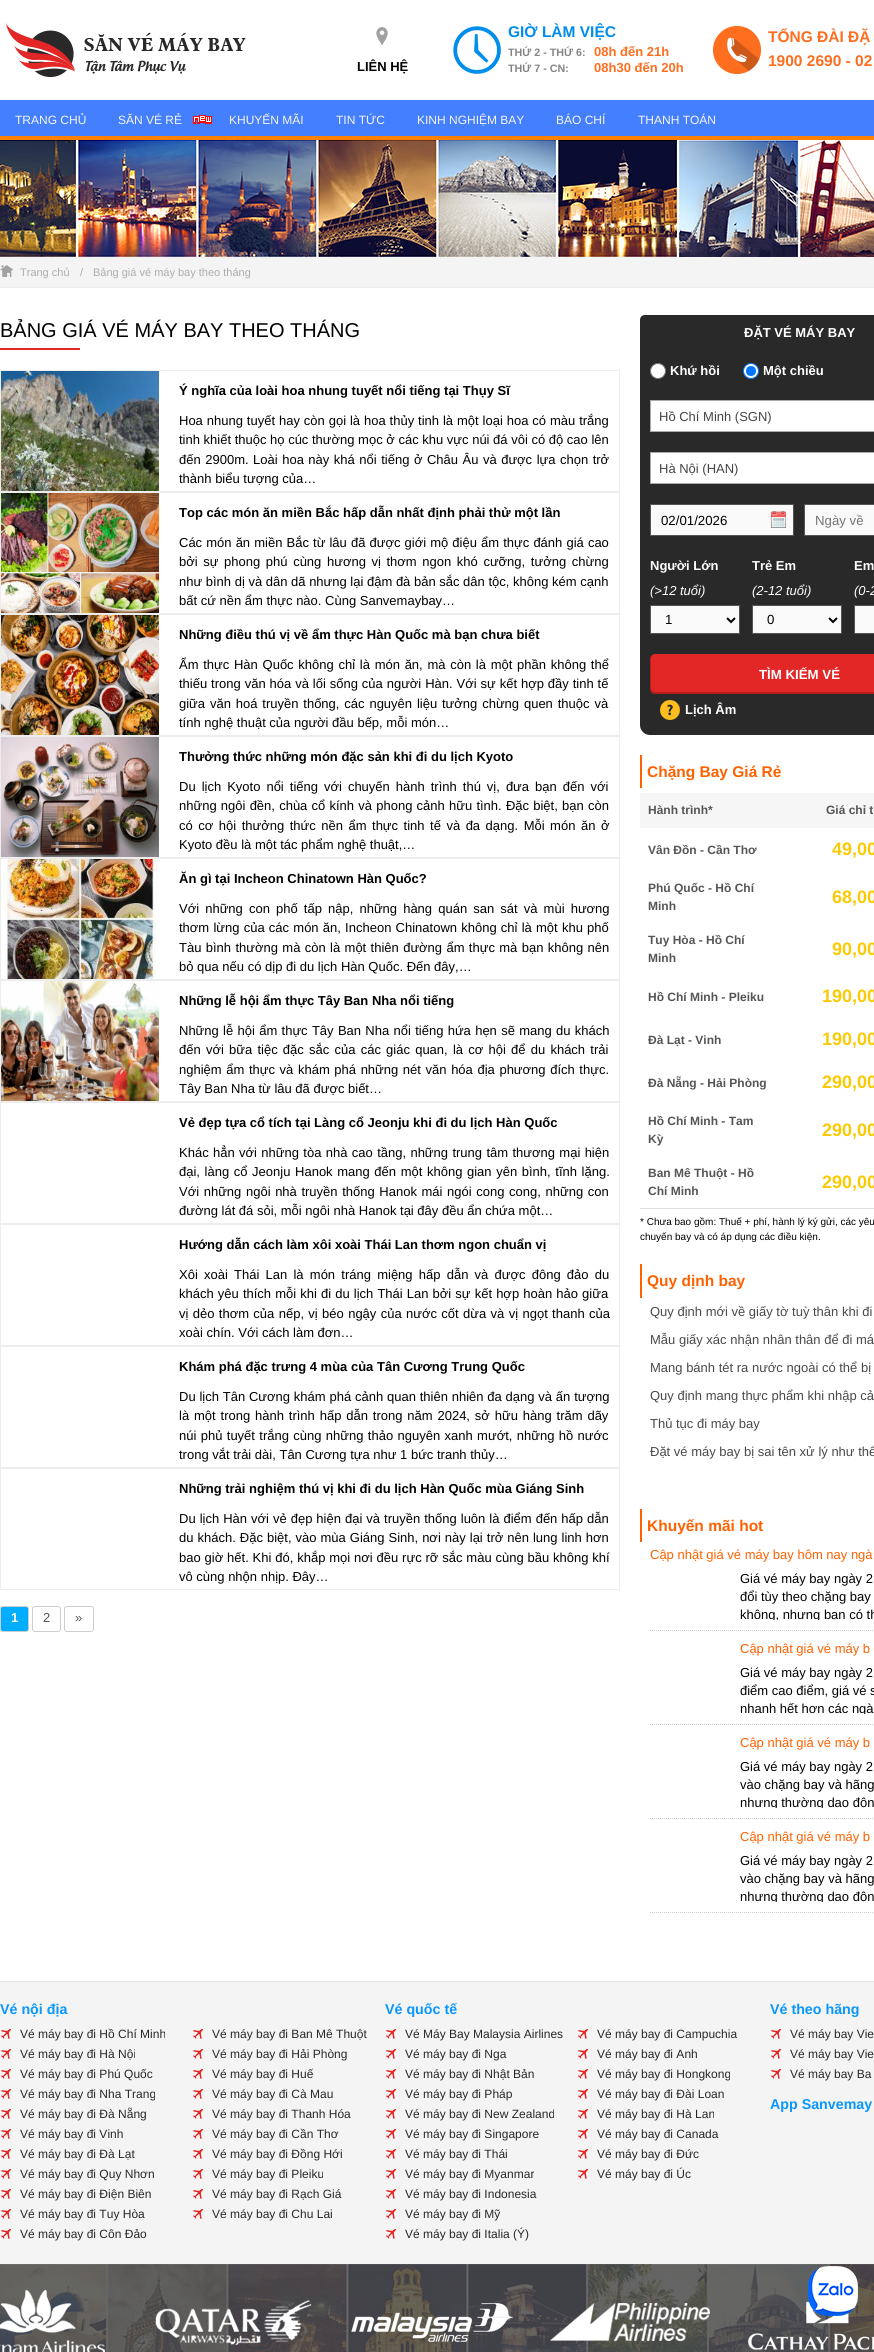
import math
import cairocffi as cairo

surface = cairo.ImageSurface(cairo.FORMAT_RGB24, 874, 2352)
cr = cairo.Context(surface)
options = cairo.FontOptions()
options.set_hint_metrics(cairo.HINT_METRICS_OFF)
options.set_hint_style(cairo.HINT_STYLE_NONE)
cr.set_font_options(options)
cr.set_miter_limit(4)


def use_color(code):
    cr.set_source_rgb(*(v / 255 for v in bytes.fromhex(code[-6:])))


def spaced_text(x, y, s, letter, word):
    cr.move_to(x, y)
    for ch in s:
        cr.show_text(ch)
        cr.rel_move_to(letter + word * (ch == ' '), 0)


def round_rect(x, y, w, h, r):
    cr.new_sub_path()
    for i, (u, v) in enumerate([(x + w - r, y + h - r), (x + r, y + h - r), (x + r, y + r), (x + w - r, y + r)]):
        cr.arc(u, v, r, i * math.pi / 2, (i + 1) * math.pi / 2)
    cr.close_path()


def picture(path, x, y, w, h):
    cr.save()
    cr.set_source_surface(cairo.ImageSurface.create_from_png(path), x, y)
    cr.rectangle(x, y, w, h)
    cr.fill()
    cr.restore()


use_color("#ffffff")
cr.paint()
picture("img1.png", 6, 23, 240, 54)
picture("img2.png", 376, 27, 12, 18)
cr.select_font_face("Liberation Sans", cairo.FONT_SLANT_NORMAL, cairo.FONT_WEIGHT_BOLD)
cr.set_font_size(13)
use_color("#000000")
cr.move_to(357, 71)
cr.show_text("LIÊN HỆ")
picture("img3.png", 453, 26, 48, 48)
cr.set_font_size(15.5)
use_color("#008eed")
cr.move_to(508, 37)
cr.show_text("GIỜ LÀM VIỆC")
cr.set_font_size(10.75)
use_color("#868585")
cr.move_to(508, 56)
cr.show_text("THỨ 2 - THỨ 6:")
cr.set_font_size(13)
use_color("#ff6e1f")
cr.move_to(594, 56)
cr.show_text("08h đến 21h")
cr.set_font_size(10.75)
use_color("#868585")
cr.move_to(508, 72)
cr.show_text("THỨ 7 - CN:")
cr.set_font_size(13)
use_color("#ff6e1f")
cr.move_to(594, 72)
cr.show_text("08h30 đến 20h")
picture("img4.png", 713, 26, 48, 48)
cr.set_font_size(15.5)
cr.move_to(768, 42)
cr.show_text("TỔNG ĐÀI ĐẶ")
cr.move_to(768, 66)
cr.show_text("1900 2690 - 02")
use_color("#447fff")
cr.rectangle(0, 100, 874, 36)
cr.fill()
use_color("#ff8103")
cr.rectangle(0, 136, 874, 4)
cr.fill()
cr.select_font_face("Liberation Sans")
cr.set_font_size(12)
use_color("#f5f5f5")
cr.move_to(15, 124)
cr.show_text("TRANG CHỦ")
picture("img5.png", 193, 115, 19, 9)
cr.move_to(118, 124)
cr.show_text("SĂN VÉ RẺ")
cr.move_to(229, 124)
cr.show_text("KHUYẾN MÃI")
cr.move_to(336, 124)
cr.show_text("TIN TỨC")
cr.move_to(417, 124)
cr.show_text("KINH NGHIỆM BAY")
cr.move_to(556, 124)
cr.show_text("BÁO CHÍ")
cr.move_to(638, 124)
cr.show_text("THANH TOÁN")
picture("img6.png", 0, 140, 874, 117)
use_color("#f4f4f4")
cr.rectangle(0, 257, 874, 30)
cr.fill()
use_color("#ededed")
cr.rectangle(0, 287, 874, 1)
cr.fill()
picture("img7.png", 0, 265, 14, 12)
cr.set_font_size(11)
use_color("#adadad")
cr.move_to(20, 276)
cr.show_text("Trang chủ")
cr.move_to(80, 276)
cr.show_text("/")
cr.move_to(93, 276)
cr.show_text("Bảng giá vé máy bay theo tháng")
use_color("#e32626")
cr.rectangle(0, 348, 80, 2)
cr.fill()
cr.set_font_size(20)
use_color("#000000")
cr.move_to(0, 337)
cr.show_text("BẢNG GIÁ VÉ MÁY BAY THEO THÁNG")
cr.rectangle(0.5, 370.5, 619, 121)
use_color("#ededed")
cr.set_line_width(1)
cr.stroke()
picture("img8.png", 1, 371, 158, 120)
cr.select_font_face("Liberation Sans", cairo.FONT_SLANT_NORMAL, cairo.FONT_WEIGHT_BOLD)
cr.set_font_size(13)
use_color("#000000")
cr.move_to(179, 395)
cr.show_text("Ý nghĩa của loài hoa nhung tuyết nổi tiếng tại Thụy Sĩ")
cr.select_font_face("Liberation Sans")
spaced_text(179, 425, "Hoa nhung tuyết hay còn gọi là hoa thủy tinh là một loại hoa có màu trắng", 0, 0.3)
cr.move_to(179, 444)
cr.show_text("tinh khiết thuộc họ cúc thường mọc ở các khu vực núi đá vôi có độ cao lên")
spaced_text(179, 464, "đến 2900m. Loài hoa này khá nổi tiếng ở Châu Âu và được lựa chọn trở", 0, 0.9)
cr.move_to(179, 483)
cr.show_text("thành biểu tượng của…")
cr.rectangle(0.5, 492.5, 619, 121)
use_color("#ededed")
cr.stroke()
picture("img9.png", 1, 493, 158, 120)
cr.select_font_face("Liberation Sans", cairo.FONT_SLANT_NORMAL, cairo.FONT_WEIGHT_BOLD)
use_color("#000000")
cr.move_to(179, 517)
cr.show_text("Top các món ăn miền Bắc hấp dẫn nhất định phải thử một lần")
cr.select_font_face("Liberation Sans")
spaced_text(179, 547, "Các món ăn miền Bắc từ lâu đã được giới mộ điệu ẩm thực đánh giá cao", 0, 0.5)
spaced_text(179, 566, "bởi sự phong phú cùng hương vị thơm ngon khó cưỡng, tưởng chừng", 0, 2)
cr.move_to(179, 586)
cr.show_text("như bình dị và dân dã nhưng lại đậm đà bản sắc dân tộc, không kém cạnh")
cr.move_to(179, 605)
cr.show_text("bất cứ nền ẩm thực nào. Cùng Sanvemaybay…")
cr.rectangle(0.5, 614.5, 619, 121)
use_color("#ededed")
cr.stroke()
picture("img10.png", 1, 615, 158, 120)
cr.select_font_face("Liberation Sans", cairo.FONT_SLANT_NORMAL, cairo.FONT_WEIGHT_BOLD)
use_color("#000000")
cr.move_to(179, 639)
cr.show_text("Những điều thú vị về ẩm thực Hàn Quốc mà bạn chưa biết")
cr.select_font_face("Liberation Sans")
spaced_text(179, 669, "Ẩm thực Hàn Quốc không chỉ là món ăn, mà còn là một phần không thể", 0, 1.1)
spaced_text(179, 688, "thiếu trong văn hóa và lối sống của người Hàn. Với sự kết hợp đầy tinh tế", 0, 0.3)
spaced_text(179, 708, "giữa văn hoá truyền thống, các nguyên liệu tưởng chừng quen thuộc và", 0, 1.25)
cr.move_to(179, 727)
cr.show_text("tính nghệ thuật của người đầu bếp, mỗi món…")
cr.rectangle(0.5, 736.5, 619, 121)
use_color("#ededed")
cr.stroke()
picture("img11.png", 1, 737, 158, 120)
cr.select_font_face("Liberation Sans", cairo.FONT_SLANT_NORMAL, cairo.FONT_WEIGHT_BOLD)
use_color("#000000")
cr.move_to(179, 761)
cr.show_text("Thưởng thức những món đặc sản khi đi du lịch Kyoto")
cr.select_font_face("Liberation Sans")
spaced_text(179, 791, "Du lịch Kyoto nổi tiếng với chuyến hành trình thú vị, đưa bạn đến với", 0, 2.4)
spaced_text(179, 810, "những ngôi đền, chùa cổ kính và phong cảnh hữu tình. Đặc biệt, bạn còn", 0, 0.6)
spaced_text(179, 830, "có cơ hội thưởng thức nền ẩm thực tinh tế và đa dạng. Mỗi món ăn ở", 0, 1.9)
cr.move_to(179, 849)
cr.show_text("Kyoto đều là một tác phẩm nghệ thuật,…")
cr.rectangle(0.5, 858.5, 619, 121)
use_color("#ededed")
cr.stroke()
picture("img12.png", 1, 859, 158, 120)
cr.select_font_face("Liberation Sans", cairo.FONT_SLANT_NORMAL, cairo.FONT_WEIGHT_BOLD)
use_color("#000000")
cr.move_to(179, 883)
cr.show_text("Ăn gì tại Incheon Chinatown Hàn Quốc?")
cr.select_font_face("Liberation Sans")
spaced_text(179, 913, "Với những con phố tấp nập, những hàng quán san sát và mùi hương", 0, 2.5)
spaced_text(179, 932, "thơm lừng của các món ăn, Incheon Chinatown không chỉ là một khu phố", 0, 0.6)
spaced_text(179, 952, "Tàu bình thường mà còn là một thiên đường ẩm thực mà bạn không nên", 0, 0.75)
cr.move_to(179, 971)
cr.show_text("bỏ qua nếu có dịp đi du lịch Hàn Quốc. Đến đây,…")
cr.rectangle(0.5, 980.5, 619, 121)
use_color("#ededed")
cr.stroke()
picture("img13.png", 1, 981, 158, 120)
cr.select_font_face("Liberation Sans", cairo.FONT_SLANT_NORMAL, cairo.FONT_WEIGHT_BOLD)
use_color("#000000")
cr.move_to(179, 1005)
cr.show_text("Những lễ hội ẩm thực Tây Ban Nha nổi tiếng")
cr.select_font_face("Liberation Sans")
spaced_text(179, 1035, "Những lễ hội ẩm thực Tây Ban Nha nổi tiếng hứa hẹn sẽ mang du khách", 0, 0.7)
spaced_text(179, 1054, "đến với bữa tiệc đặc sắc của các giác quan, là cơ hội để du khách trải", 0, 1.6)
spaced_text(179, 1074, "nghiệm ẩm thực và khám phá những nét văn hóa địa phương đích thực.", 0, 1)
cr.move_to(179, 1093)
cr.show_text("Tây Ban Nha từ lâu đã được biết…")
cr.rectangle(0.5, 1102.5, 619, 121)
use_color("#ededed")
cr.stroke()
cr.select_font_face("Liberation Sans", cairo.FONT_SLANT_NORMAL, cairo.FONT_WEIGHT_BOLD)
use_color("#000000")
cr.move_to(179, 1127)
cr.show_text("Vẻ đẹp tựa cổ tích tại Làng cổ Jeonju khi đi du lịch Hàn Quốc")
cr.select_font_face("Liberation Sans")
spaced_text(179, 1157, "Khác hẳn với những tòa nhà cao tầng, những trung tâm thương mại hiện", 0, 0.75)
spaced_text(179, 1176, "đại, làng cổ Jeonju Hanok mang đến một không gian yên bình, tĩnh lặng.", 0, 1)
spaced_text(179, 1196, "Với những ngôi nhà truyền thống Hanok mái ngói cong cong, những con", 0, 1)
cr.move_to(179, 1215)
cr.show_text("đường lát đá sỏi, mỗi ngôi nhà Hanok tại đây đều ẩn chứa một…")
cr.rectangle(0.5, 1224.5, 619, 121)
use_color("#ededed")
cr.stroke()
cr.select_font_face("Liberation Sans", cairo.FONT_SLANT_NORMAL, cairo.FONT_WEIGHT_BOLD)
use_color("#000000")
cr.move_to(179, 1249)
cr.show_text("Hướng dẫn cách làm xôi xoài Thái Lan thơm ngon chuẩn vị")
cr.select_font_face("Liberation Sans")
spaced_text(179, 1279, "Xôi xoài Thái Lan là món tráng miệng hấp dẫn và được đông đảo du", 0, 2.6)
spaced_text(179, 1298, "khách yêu thích mỗi khi đi du lịch Thái Lan bởi sự kết hợp hoàn hảo giữa", 0, 0.5)
spaced_text(179, 1318, "vị dẻo thơm của nếp, vị béo ngậy của nước cốt dừa và vị ngọt thanh của", 0, 0.75)
cr.move_to(179, 1337)
cr.show_text("xoài chín. Với cách làm đơn…")
cr.rectangle(0.5, 1346.5, 619, 121)
use_color("#ededed")
cr.stroke()
cr.select_font_face("Liberation Sans", cairo.FONT_SLANT_NORMAL, cairo.FONT_WEIGHT_BOLD)
use_color("#000000")
cr.move_to(179, 1371)
cr.show_text("Khám phá đặc trưng 4 mùa của Tân Cương Trung Quốc")
cr.select_font_face("Liberation Sans")
spaced_text(179, 1401, "Du lịch Tân Cương khám phá cảnh quan thiên nhiên đa dạng và ấn tượng", 0, 0.2)
spaced_text(179, 1420, "là một trong hành trình hấp dẫn trong năm 2024, sở hữu hàng trăm dãy", 0, 1.25)
spaced_text(179, 1440, "núi phủ tuyết trắng cùng những thảo nguyên xanh mướt, những hồ nước", 0, 0.75)
cr.move_to(179, 1459)
cr.show_text("trong vắt trải dài, Tân Cương tựa như 1 bức tranh thủy…")
cr.rectangle(0.5, 1468.5, 619, 121)
use_color("#ededed")
cr.stroke()
cr.select_font_face("Liberation Sans", cairo.FONT_SLANT_NORMAL, cairo.FONT_WEIGHT_BOLD)
use_color("#000000")
cr.move_to(179, 1493)
cr.show_text("Những trải nghiệm thú vị khi đi du lịch Hàn Quốc mùa Giáng Sinh")
cr.select_font_face("Liberation Sans")
spaced_text(179, 1523, "Du lịch Hàn với vẻ đẹp hiện đại và truyền thống luôn là điểm đến hấp dẫn", 0, 0.4)
spaced_text(179, 1542, "du khách. Đặc biệt, vào mùa Giáng Sinh, nơi này lại trở nên lung linh hơn", 0, 0.4)
spaced_text(179, 1562, "bao giờ hết. Khi đó, khắp mọi nơi đều rực rỡ sắc màu cùng bầu không khí", 0, 0.25)
cr.move_to(179, 1581)
cr.show_text("vô cùng nhộn nhịp. Đây…")
use_color("#00adff")
round_rect(0.5, 1606.5, 28, 25, 2.5)
cr.fill_preserve()
use_color("#cecece")
cr.stroke()
cr.select_font_face("Liberation Sans", cairo.FONT_SLANT_NORMAL, cairo.FONT_WEIGHT_BOLD)
use_color("#ffffff")
cr.move_to(11, 1622)
cr.show_text("1")
round_rect(32.5, 1606.5, 28, 25, 2.5)
use_color("#cecece")
cr.stroke()
cr.select_font_face("Liberation Sans")
use_color("#555555")
cr.move_to(43, 1622)
cr.show_text("2")
round_rect(64.5, 1606.5, 29, 25, 2.5)
use_color("#cecece")
cr.stroke()
use_color("#555555")
cr.move_to(75, 1622)
cr.show_text("»")
use_color("#292929")
cr.new_path()
cr.move_to(645, 315)
cr.line_to(874, 315)
cr.curve_to(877, 315, 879, 317, 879, 320)
cr.line_to(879, 350)
cr.line_to(640, 350)
cr.line_to(640, 320)
cr.curve_to(640, 317, 642, 315, 645, 315)
cr.close_path()
cr.fill()
cr.select_font_face("Liberation Sans", cairo.FONT_SLANT_NORMAL, cairo.FONT_WEIGHT_BOLD)
use_color("#ffffff")
cr.move_to(744, 337)
cr.show_text("ĐẶT VÉ MÁY BAY")
use_color("#292929")
cr.new_path()
cr.move_to(640, 350)
cr.line_to(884, 350)
cr.line_to(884, 725)
cr.curve_to(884, 730.5, 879.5, 735, 874, 735)
cr.line_to(650, 735)
cr.curve_to(644.5, 735, 640, 730.5, 640, 725)
cr.close_path()
cr.fill()
use_color("#ffffff")
cr.arc(658, 371, 7.5, 0, 2 * math.pi)
cr.fill_preserve()
use_color("#767676")
cr.stroke()
use_color("#ffffff")
cr.move_to(670, 375)
cr.show_text("Khứ hồi")
cr.new_path()
cr.arc(751, 371, 7.5, 0, 2 * math.pi)
cr.fill_preserve()
use_color("#0075ff")
cr.stroke()
cr.arc(751, 371, 5, 0, 2 * math.pi)
cr.fill()
use_color("#ffffff")
cr.move_to(763, 375)
cr.show_text("Một chiều")
cr.rectangle(650.5, 400.5, 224, 31)
cr.fill_preserve()
use_color("#aaaaaa")
cr.stroke()
cr.select_font_face("Liberation Sans")
use_color("#444444")
cr.move_to(659, 421)
cr.show_text("Hồ Chí Minh (SGN)")
use_color("#ffffff")
cr.rectangle(650.5, 452.5, 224, 31)
cr.fill_preserve()
use_color("#aaaaaa")
cr.stroke()
use_color("#444444")
cr.move_to(659, 473)
cr.show_text("Hà Nội (HAN)")
use_color("#f9f9f9")
cr.rectangle(651, 505, 142, 30)
cr.fill()
picture("img14.png", 771, 511, 15, 17)
cr.rectangle(650.5, 504.5, 143, 31)
use_color("#555555")
cr.stroke()
cr.set_font_size(13.25)
use_color("#000000")
cr.move_to(661, 525)
cr.show_text("02/01/2026")
use_color("#f9f9f9")
cr.rectangle(804.5, 504.5, 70, 31)
cr.fill_preserve()
use_color("#555555")
cr.stroke()
use_color("#757575")
cr.move_to(815, 525)
cr.show_text("Ngày về")
cr.select_font_face("Liberation Sans", cairo.FONT_SLANT_NORMAL, cairo.FONT_WEIGHT_BOLD)
cr.set_font_size(13)
use_color("#ffffff")
cr.move_to(650, 570)
cr.show_text("Người Lớn")
cr.select_font_face("Liberation Sans", cairo.FONT_SLANT_ITALIC)
cr.move_to(650, 595)
cr.show_text("(>12 tuổi)")
use_color("#f9f9f9")
cr.rectangle(650.5, 605.5, 89, 28)
cr.fill_preserve()
use_color("#555555")
cr.stroke()
cr.new_path()
cr.move_to(727, 618)
cr.line_to(731, 622)
cr.line_to(735, 618)
use_color("#000000")
cr.set_line_width(2)
cr.stroke()
cr.select_font_face("Liberation Sans")
cr.set_font_size(13.25)
cr.move_to(665, 624)
cr.show_text("1")
cr.select_font_face("Liberation Sans", cairo.FONT_SLANT_NORMAL, cairo.FONT_WEIGHT_BOLD)
cr.set_font_size(13)
use_color("#ffffff")
cr.move_to(752, 570)
cr.show_text("Trẻ Em")
cr.select_font_face("Liberation Sans", cairo.FONT_SLANT_ITALIC)
cr.move_to(752, 595)
cr.show_text("(2-12 tuổi)")
use_color("#f9f9f9")
cr.rectangle(752.5, 605.5, 89, 28)
cr.fill_preserve()
use_color("#555555")
cr.set_line_width(1)
cr.stroke()
cr.new_path()
cr.move_to(829, 618)
cr.line_to(833, 622)
cr.line_to(837, 618)
use_color("#000000")
cr.set_line_width(2)
cr.stroke()
cr.select_font_face("Liberation Sans")
cr.set_font_size(13.25)
cr.move_to(767, 624)
cr.show_text("0")
cr.select_font_face("Liberation Sans", cairo.FONT_SLANT_NORMAL, cairo.FONT_WEIGHT_BOLD)
cr.set_font_size(13)
use_color("#ffffff")
cr.move_to(854, 570)
cr.show_text("Em")
cr.select_font_face("Liberation Sans", cairo.FONT_SLANT_ITALIC)
cr.move_to(854, 595)
cr.show_text("(0-2")
use_color("#f9f9f9")
cr.rectangle(854.5, 605.5, 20, 28)
cr.fill_preserve()
use_color("#555555")
cr.set_line_width(1)
cr.stroke()
use_color("#e32626")
round_rect(650, 654, 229, 40, 5)
cr.fill()
cr.set_source_rgba(0, 0, 0, 0.2)
cr.new_path()
cr.move_to(655, 654)
cr.curve_to(652, 654, 650, 656, 650, 659)
cr.line_to(650, 689)
cr.curve_to(650, 692, 652, 694, 655, 694)
cr.line_to(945, 694)
cr.curve_to(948, 694, 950, 692, 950, 689)
cr.line_to(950, 659)
cr.curve_to(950, 656, 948, 654, 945, 654)
cr.curve_to(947, 654, 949, 656, 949, 658)
cr.line_to(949, 688)
cr.curve_to(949, 690, 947, 692, 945, 692)
cr.line_to(655, 692)
cr.curve_to(653, 692, 651, 690, 651, 688)
cr.line_to(651, 658)
cr.curve_to(651, 656, 653, 654, 655, 654)
cr.close_path()
cr.fill()
cr.select_font_face("Liberation Sans", cairo.FONT_SLANT_NORMAL, cairo.FONT_WEIGHT_BOLD)
cr.set_font_size(13.25)
use_color("#ffffff")
cr.move_to(759, 679)
cr.show_text("TÌM KIẾM VÉ")
picture("img15.png", 660, 700, 20, 20)
cr.set_font_size(13)
cr.move_to(685, 714)
cr.show_text("Lịch Âm")
use_color("#ff6100")
cr.rectangle(640, 755, 2, 33)
cr.fill()
cr.set_font_size(15.5)
cr.move_to(647, 777)
cr.show_text("Chặng Bay Giá Rẻ")
use_color("#dddddd")
cr.rectangle(640, 1208, 234, 1)
cr.fill()
use_color("#f6f6f6")
cr.rectangle(640, 793, 234, 35)
cr.fill()
cr.set_font_size(12)
use_color("#555555")
cr.move_to(648, 814)
cr.show_text("Hành trình*")
cr.move_to(826, 814)
cr.show_text("Giá chỉ t")
cr.move_to(648, 854)
cr.show_text("Vân Đồn - Cần Thơ")
cr.set_font_size(18)
use_color("#fbca04")
cr.move_to(832, 855)
cr.show_text("49,00")
cr.set_font_size(12)
use_color("#555555")
cr.move_to(648, 892)
cr.show_text("Phú Quốc - Hồ Chí")
cr.move_to(648, 910)
cr.show_text("Minh")
cr.set_font_size(18)
use_color("#fbca04")
cr.move_to(832, 903)
cr.show_text("68,00")
cr.set_font_size(12)
use_color("#555555")
cr.move_to(648, 944)
cr.show_text("Tuy Hòa - Hồ Chí")
cr.move_to(648, 962)
cr.show_text("Minh")
cr.set_font_size(18)
use_color("#fbca04")
cr.move_to(832, 955)
cr.show_text("90,00")
cr.set_font_size(12)
use_color("#555555")
cr.move_to(648, 1001)
cr.show_text("Hồ Chí Minh - Pleiku")
cr.set_font_size(18)
use_color("#fbca04")
cr.move_to(822, 1002)
cr.show_text("190,00")
cr.set_font_size(12)
use_color("#555555")
cr.move_to(648, 1044)
cr.show_text("Đà Lạt - Vinh")
cr.set_font_size(18)
use_color("#fbca04")
cr.move_to(822, 1045)
cr.show_text("190,00")
cr.set_font_size(12)
use_color("#555555")
cr.move_to(648, 1087)
cr.show_text("Đà Nẵng - Hải Phòng")
cr.set_font_size(18)
use_color("#fbca04")
cr.move_to(822, 1088)
cr.show_text("290,00")
cr.set_font_size(12)
use_color("#555555")
cr.move_to(648, 1125)
cr.show_text("Hồ Chí Minh - Tam")
cr.move_to(648, 1143)
cr.show_text("Kỳ")
cr.set_font_size(18)
use_color("#fbca04")
cr.move_to(822, 1136)
cr.show_text("290,00")
cr.set_font_size(12)
use_color("#555555")
cr.move_to(648, 1177)
cr.show_text("Ban Mê Thuột - Hồ")
cr.move_to(648, 1195)
cr.show_text("Chí Minh")
cr.set_font_size(18)
use_color("#fbca04")
cr.move_to(822, 1188)
cr.show_text("290,00")
cr.select_font_face("Liberation Sans")
cr.set_font_size(10)
use_color("#000000")
cr.move_to(640, 1225)
cr.show_text("* Chưa bao gồm: Thuế + phí, hành lý ký gửi, các yêu")
cr.move_to(640, 1240)
cr.show_text("chuyến bay và có áp dụng các điều kiện.")
use_color("#ff6100")
cr.rectangle(640, 1264, 2, 34)
cr.fill()
cr.select_font_face("Liberation Sans", cairo.FONT_SLANT_NORMAL, cairo.FONT_WEIGHT_BOLD)
cr.set_font_size(15.5)
cr.move_to(647, 1286)
cr.show_text("Quy dịnh bay")
cr.select_font_face("Liberation Sans")
cr.set_font_size(13)
use_color("#4a4949")
cr.move_to(650, 1316)
cr.show_text("Quy định mới về giấy tờ tuỳ thân khi đi")
cr.move_to(650, 1344)
cr.show_text("Mẫu giấy xác nhận nhân thân để đi má")
cr.move_to(650, 1372)
cr.show_text("Mang bánh tét ra nước ngoài có thể bị")
cr.move_to(650, 1400)
cr.show_text("Quy định mang thực phẩm khi nhập cả")
cr.move_to(650, 1428)
cr.show_text("Thủ tục đi máy bay")
cr.move_to(650, 1456)
cr.show_text("Đặt vé máy bay bị sai tên xử lý như thế")
use_color("#ff6100")
cr.rectangle(640, 1509, 2, 33)
cr.fill()
cr.select_font_face("Liberation Sans", cairo.FONT_SLANT_NORMAL, cairo.FONT_WEIGHT_BOLD)
cr.set_font_size(15.5)
cr.move_to(647, 1531)
cr.show_text("Khuyến mãi hot")
cr.new_path()
cr.move_to(650, 1630.5)
cr.line_to(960, 1630.5)
use_color("#cecece")
cr.set_dash([1, 1])
cr.stroke()
cr.select_font_face("Liberation Sans")
cr.set_font_size(13)
use_color("#ff6100")
cr.move_to(650, 1559)
cr.show_text("Cập nhật giá vé máy bay hôm nay ngà")
use_color("#000000")
cr.move_to(740, 1583)
cr.show_text("Giá vé máy bay ngày 2")
cr.move_to(740, 1601)
cr.show_text("đổi tùy theo chặng bay")
cr.save()
cr.rectangle(740, 1570, 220, 50)
cr.clip()
cr.move_to(740, 1619)
cr.show_text("không, nhưng bạn có th")
cr.restore()
cr.new_path()
cr.move_to(650, 1724.5)
cr.line_to(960, 1724.5)
use_color("#cecece")
cr.stroke()
use_color("#ff6100")
cr.move_to(740, 1653)
cr.show_text("Cập nhật giá vé máy b")
use_color("#000000")
cr.move_to(740, 1677)
cr.show_text("Giá vé máy bay ngày 2")
cr.move_to(740, 1695)
cr.show_text("điểm cao điểm, giá vé s")
cr.save()
cr.rectangle(740, 1664, 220, 50)
cr.clip()
cr.move_to(740, 1713)
cr.show_text("nhanh hết hơn các ngà")
cr.restore()
cr.new_path()
cr.move_to(650, 1818.5)
cr.line_to(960, 1818.5)
use_color("#cecece")
cr.stroke()
use_color("#ff6100")
cr.move_to(740, 1747)
cr.show_text("Cập nhật giá vé máy b")
use_color("#000000")
cr.move_to(740, 1771)
cr.show_text("Giá vé máy bay ngày 2")
cr.move_to(740, 1789)
cr.show_text("vào chặng bay và hãng")
cr.save()
cr.rectangle(740, 1758, 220, 50)
cr.clip()
cr.move_to(740, 1807)
cr.show_text("nhưng thường dao độn")
cr.restore()
cr.new_path()
cr.move_to(650, 1912.5)
cr.line_to(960, 1912.5)
use_color("#cecece")
cr.stroke()
use_color("#ff6100")
cr.move_to(740, 1841)
cr.show_text("Cập nhật giá vé máy b")
use_color("#000000")
cr.move_to(740, 1865)
cr.show_text("Giá vé máy bay ngày 2")
cr.move_to(740, 1883)
cr.show_text("vào chặng bay và hãng")
cr.save()
cr.rectangle(740, 1852, 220, 50)
cr.clip()
cr.move_to(740, 1901)
cr.show_text("nhưng thường dao độn")
cr.restore()
use_color("#f4f4f4")
cr.rectangle(0, 1982, 874, 282)
cr.fill()
use_color("#e2e2e2")
cr.rectangle(0, 1981, 874, 1)
cr.fill()
cr.select_font_face("Liberation Sans", cairo.FONT_SLANT_NORMAL, cairo.FONT_WEIGHT_BOLD)
cr.set_font_size(14.25)
use_color("#0896ff")
cr.move_to(0, 2014)
cr.show_text("Vé nội địa")
picture("img16.png", 1, 2029, 10, 10)
cr.select_font_face("Liberation Sans")
cr.set_font_size(12)
use_color("#282828")
cr.move_to(20, 2038)
cr.show_text("Vé máy bay đi Hồ Chí Minh")
picture("img16.png", 1, 2049, 10, 10)
cr.move_to(20, 2058)
cr.show_text("Vé máy bay đi Hà Nội")
picture("img16.png", 1, 2069, 10, 10)
cr.move_to(20, 2078)
cr.show_text("Vé máy bay đi Phú Quốc")
picture("img16.png", 1, 2089, 10, 10)
cr.move_to(20, 2098)
cr.show_text("Vé máy bay đi Nha Trang")
picture("img16.png", 1, 2109, 10, 10)
cr.move_to(20, 2118)
cr.show_text("Vé máy bay đi Đà Nẵng")
picture("img16.png", 1, 2129, 10, 10)
cr.move_to(20, 2138)
cr.show_text("Vé máy bay đi Vinh")
picture("img16.png", 1, 2149, 10, 10)
cr.move_to(20, 2158)
cr.show_text("Vé máy bay đi Đà Lạt")
picture("img16.png", 1, 2169, 10, 10)
cr.move_to(20, 2178)
cr.show_text("Vé máy bay đi Quy Nhơn")
picture("img16.png", 1, 2189, 10, 10)
cr.move_to(20, 2198)
cr.show_text("Vé máy bay đi Điện Biên")
picture("img16.png", 1, 2209, 10, 10)
cr.move_to(20, 2218)
cr.show_text("Vé máy bay đi Tuy Hòa")
picture("img16.png", 1, 2229, 10, 10)
cr.move_to(20, 2238)
cr.show_text("Vé máy bay đi Côn Đảo")
picture("img16.png", 193, 2029, 10, 10)
cr.move_to(212, 2038)
cr.show_text("Vé máy bay đi Ban Mê Thuột")
picture("img16.png", 193, 2049, 10, 10)
cr.move_to(212, 2058)
cr.show_text("Vé máy bay đi Hải Phòng")
picture("img16.png", 193, 2069, 10, 10)
cr.move_to(212, 2078)
cr.show_text("Vé máy bay đi Huế")
picture("img16.png", 193, 2089, 10, 10)
cr.move_to(212, 2098)
cr.show_text("Vé máy bay đi Cà Mau")
picture("img16.png", 193, 2109, 10, 10)
cr.move_to(212, 2118)
cr.show_text("Vé máy bay đi Thanh Hóa")
picture("img16.png", 193, 2129, 10, 10)
cr.move_to(212, 2138)
cr.show_text("Vé máy bay đi Cần Thơ")
picture("img16.png", 193, 2149, 10, 10)
cr.move_to(212, 2158)
cr.show_text("Vé máy bay đi Đồng Hới")
picture("img16.png", 193, 2169, 10, 10)
cr.move_to(212, 2178)
cr.show_text("Vé máy bay đi Pleiku")
picture("img16.png", 193, 2189, 10, 10)
cr.move_to(212, 2198)
cr.show_text("Vé máy bay đi Rạch Giá")
picture("img16.png", 193, 2209, 10, 10)
cr.move_to(212, 2218)
cr.show_text("Vé máy bay đi Chu Lai")
cr.select_font_face("Liberation Sans", cairo.FONT_SLANT_NORMAL, cairo.FONT_WEIGHT_BOLD)
cr.set_font_size(14.25)
use_color("#0896ff")
cr.move_to(385, 2014)
cr.show_text("Vé quốc tế")
picture("img16.png", 386, 2029, 10, 10)
cr.select_font_face("Liberation Sans")
cr.set_font_size(12)
use_color("#282828")
cr.move_to(405, 2038)
cr.show_text("Vé Máy Bay Malaysia Airlines")
picture("img16.png", 386, 2049, 10, 10)
cr.move_to(405, 2058)
cr.show_text("Vé máy bay đi Nga")
picture("img16.png", 386, 2069, 10, 10)
cr.move_to(405, 2078)
cr.show_text("Vé máy bay đi Nhật Bản")
picture("img16.png", 386, 2089, 10, 10)
cr.move_to(405, 2098)
cr.show_text("Vé máy bay đi Pháp")
picture("img16.png", 386, 2109, 10, 10)
cr.move_to(405, 2118)
cr.show_text("Vé máy bay đi New Zealand")
picture("img16.png", 386, 2129, 10, 10)
cr.move_to(405, 2138)
cr.show_text("Vé máy bay đi Singapore")
picture("img16.png", 386, 2149, 10, 10)
cr.move_to(405, 2158)
cr.show_text("Vé máy bay đi Thái")
picture("img16.png", 386, 2169, 10, 10)
cr.move_to(405, 2178)
cr.show_text("Vé máy bay đi Myanmar")
picture("img16.png", 386, 2189, 10, 10)
cr.move_to(405, 2198)
cr.show_text("Vé máy bay đi Indonesia")
picture("img16.png", 386, 2209, 10, 10)
cr.move_to(405, 2218)
cr.show_text("Vé máy bay đi Mỹ")
picture("img16.png", 386, 2229, 10, 10)
cr.move_to(405, 2238)
cr.show_text("Vé máy bay đi Italia (Ý)")
picture("img16.png", 578, 2029, 10, 10)
cr.move_to(597, 2038)
cr.show_text("Vé máy bay đi Campuchia")
picture("img16.png", 578, 2049, 10, 10)
cr.move_to(597, 2058)
cr.show_text("Vé máy bay đi Anh")
picture("img16.png", 578, 2069, 10, 10)
cr.move_to(597, 2078)
cr.show_text("Vé máy bay đi Hongkong")
picture("img16.png", 578, 2089, 10, 10)
cr.move_to(597, 2098)
cr.show_text("Vé máy bay đi Đài Loan")
picture("img16.png", 578, 2109, 10, 10)
cr.move_to(597, 2118)
cr.show_text("Vé máy bay đi Hà Lan")
picture("img16.png", 578, 2129, 10, 10)
cr.move_to(597, 2138)
cr.show_text("Vé máy bay đi Canada")
picture("img16.png", 578, 2149, 10, 10)
cr.move_to(597, 2158)
cr.show_text("Vé máy bay đi Đức")
picture("img16.png", 578, 2169, 10, 10)
cr.move_to(597, 2178)
cr.show_text("Vé máy bay đi Úc")
cr.select_font_face("Liberation Sans", cairo.FONT_SLANT_NORMAL, cairo.FONT_WEIGHT_BOLD)
cr.set_font_size(14.25)
use_color("#0896ff")
cr.move_to(770, 2014)
cr.show_text("Vé theo hãng")
picture("img16.png", 771, 2029, 10, 10)
cr.select_font_face("Liberation Sans")
cr.set_font_size(12)
use_color("#282828")
cr.move_to(790, 2038)
cr.show_text("Vé máy bay Vie")
picture("img16.png", 771, 2049, 10, 10)
cr.move_to(790, 2058)
cr.show_text("Vé máy bay Vie")
picture("img16.png", 771, 2069, 10, 10)
cr.move_to(790, 2078)
cr.show_text("Vé máy bay Ba")
cr.select_font_face("Liberation Sans", cairo.FONT_SLANT_NORMAL, cairo.FONT_WEIGHT_BOLD)
cr.set_font_size(14.25)
use_color("#0896ff")
cr.move_to(770, 2109)
cr.show_text("App Sanvemay")
picture("img17.png", 0, 2264, 874, 88)
picture("img18.png", 808, 2266, 50, 50)
surface.write_to_png("result.png")
